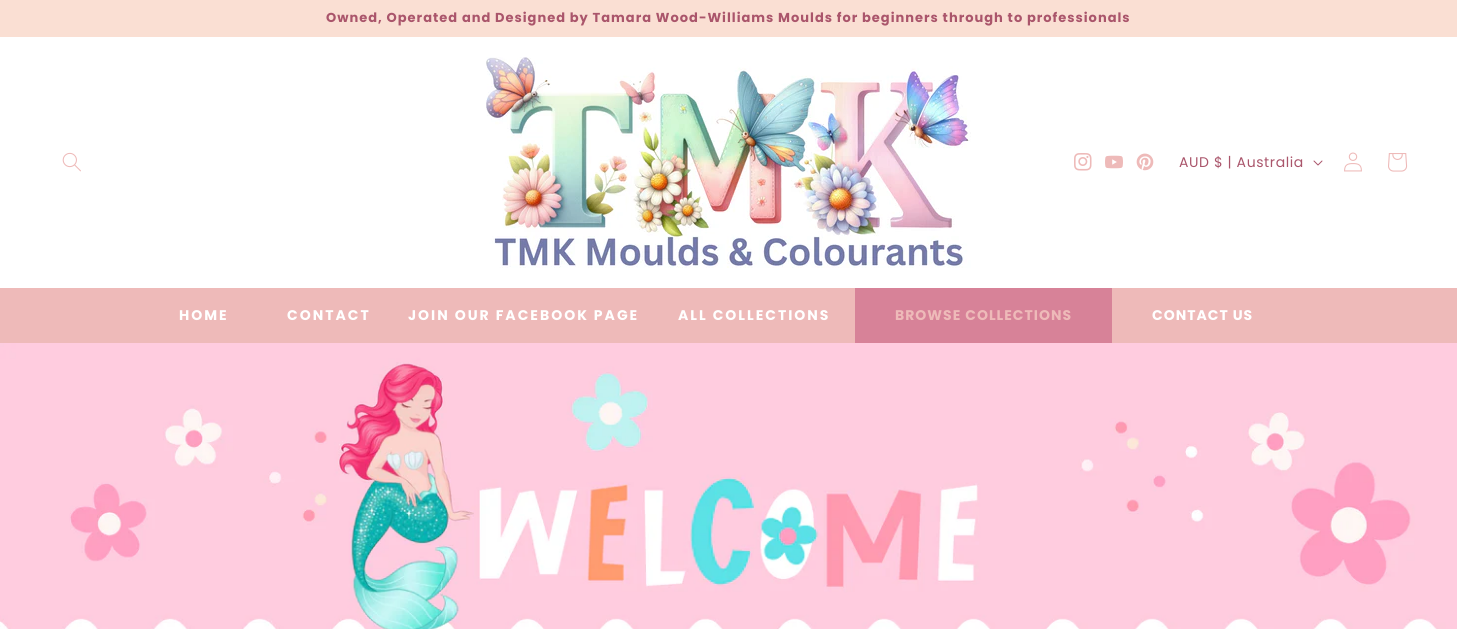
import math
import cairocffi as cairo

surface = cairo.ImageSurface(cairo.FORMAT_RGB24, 1457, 629)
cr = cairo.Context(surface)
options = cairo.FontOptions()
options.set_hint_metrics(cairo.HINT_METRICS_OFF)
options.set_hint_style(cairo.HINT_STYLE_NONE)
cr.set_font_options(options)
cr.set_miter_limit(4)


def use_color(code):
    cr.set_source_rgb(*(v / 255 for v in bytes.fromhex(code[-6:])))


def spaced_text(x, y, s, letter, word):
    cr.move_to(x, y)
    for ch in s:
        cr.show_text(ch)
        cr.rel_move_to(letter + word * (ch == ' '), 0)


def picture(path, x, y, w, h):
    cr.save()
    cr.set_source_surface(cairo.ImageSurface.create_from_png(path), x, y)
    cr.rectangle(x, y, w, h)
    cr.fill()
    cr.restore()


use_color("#ffffff")
cr.paint()
use_color("#fadfd3")
cr.rectangle(0, 0, 1457, 37)
cr.fill()
cr.select_font_face("Poppins", cairo.FONT_SLANT_NORMAL, cairo.FONT_WEIGHT_BOLD)
cr.set_font_size(13)
use_color("#aa556b")
spaced_text(326, 22, "Owned, Operated and Designed by Tamara Wood-Williams Moulds for beginners through to professionals", 1, 0)
picture("img1.png", 62, 152, 19, 20)
picture("img2.png", 486, 57, 485, 211)
picture("img3.png", 1074, 153, 18, 18)
picture("img4.png", 1105, 155, 18, 14)
picture("img5.png", 1136, 153, 18, 18)
cr.select_font_face("Poppins")
cr.set_font_size(14)
spaced_text(1179, 167, "AUD $ | Australia", 0.6, 0)
picture("img6.png", 1313, 160, 10, 6)
picture("img7.png", 1344, 152, 18, 20)
picture("img8.png", 1388, 153, 20, 19)
use_color("#eebab9")
cr.rectangle(0, 288, 1457, 55)
cr.fill()
cr.select_font_face("Poppins", cairo.FONT_SLANT_NORMAL, cairo.FONT_WEIGHT_BOLD)
use_color("#ffffff")
spaced_text(179, 320, "HOME", 2, 0)
spaced_text(287, 320, "CONTACT", 2, 0)
spaced_text(408, 320, "JOIN OUR FACEBOOK PAGE", 2, 0)
spaced_text(678, 320, "ALL COLLECTIONS", 2, 0)
use_color("#d78298")
cr.rectangle(855, 288, 257, 55)
cr.fill()
use_color("#eebab9")
spaced_text(895, 320, "BROWSE COLLECTIONS", 1, 0)
use_color("#ffffff")
spaced_text(1152, 320, "CONTACT US", 1, 0)
picture("img9.png", 0, 343, 1457, 286)
surface.write_to_png("result.png")
